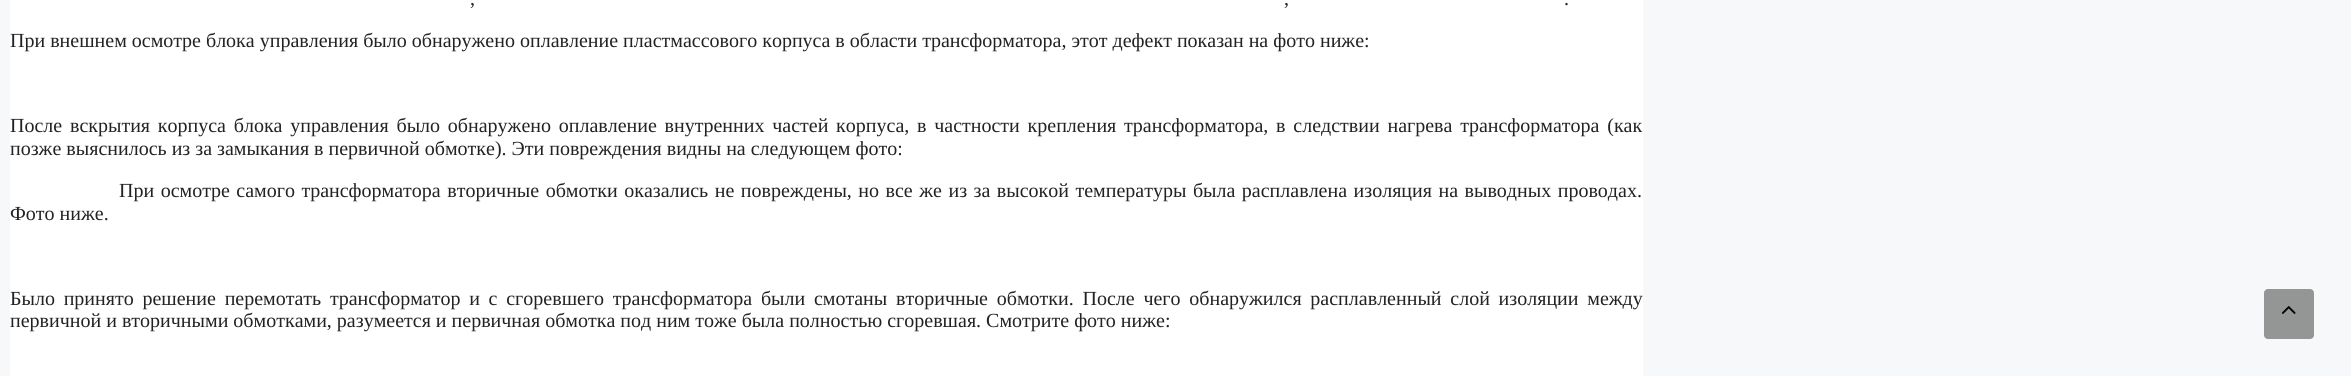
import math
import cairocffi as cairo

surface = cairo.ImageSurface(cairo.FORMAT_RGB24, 2351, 376)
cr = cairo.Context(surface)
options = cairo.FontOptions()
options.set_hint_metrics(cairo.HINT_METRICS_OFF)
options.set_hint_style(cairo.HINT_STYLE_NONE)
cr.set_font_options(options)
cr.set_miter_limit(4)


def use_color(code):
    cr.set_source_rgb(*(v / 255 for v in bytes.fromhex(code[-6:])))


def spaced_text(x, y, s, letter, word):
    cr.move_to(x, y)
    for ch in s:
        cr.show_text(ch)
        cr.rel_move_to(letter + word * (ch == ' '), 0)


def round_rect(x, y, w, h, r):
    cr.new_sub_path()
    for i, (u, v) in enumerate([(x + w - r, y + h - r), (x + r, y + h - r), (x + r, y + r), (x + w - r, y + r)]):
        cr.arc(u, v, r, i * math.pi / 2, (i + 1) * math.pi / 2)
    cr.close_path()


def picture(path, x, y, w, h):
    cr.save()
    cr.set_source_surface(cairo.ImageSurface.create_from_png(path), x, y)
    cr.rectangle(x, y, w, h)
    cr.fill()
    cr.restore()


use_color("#f7f8f9")
cr.paint()
use_color("#ffffff")
cr.rectangle(10, 0, 1633, 376)
cr.fill()
cr.select_font_face("Liberation Serif")
cr.set_font_size(20)
use_color("#222222")
cr.move_to(470, 5)
cr.show_text(",")
cr.move_to(1284, 5)
cr.show_text(",")
cr.move_to(1564, 5)
cr.show_text(".")
cr.move_to(10, 47)
cr.show_text("При внешнем осмотре блока управления было обнаружено оплавление пластмассового корпуса в области трансформатора, этот дефект показан на фото ниже:")
spaced_text(10, 132, "После вскрытия корпуса блока управления было обнаружено оплавление внутренних частей корпуса, в частности крепления трансформатора, в следствии нагрева трансформатора (как", 0, 2.75)
cr.move_to(10, 155)
cr.show_text("позже выяснилось из за замыкания в первичной обмотке). Эти повреждения видны на следующем фото:")
spaced_text(119, 197, "При осмотре самого трансформатора вторичные обмотки оказались не повреждены, но все же из за высокой температуры была расплавлена изоляция на выводных проводах.", 0, 1.5)
cr.move_to(10, 220)
cr.show_text("Фото ниже.")
spaced_text(10, 305, "Было принято решение перемотать трансформатор и с сгоревшего трансформатора были смотаны вторичные обмотки. После чего обнаружился расплавленный слой изоляции между", 0, 3.75)
cr.move_to(10, 327)
cr.show_text("первичной и вторичными обмотками, разумеется и первичная обмотка под ним тоже была полностью сгоревшая. Смотрите фото ниже:")
use_color("#949595")
round_rect(2264, 289, 50, 50, 4)
cr.fill()
picture("img1.png", 2281, 306, 15, 8)
surface.write_to_png("result.png")
